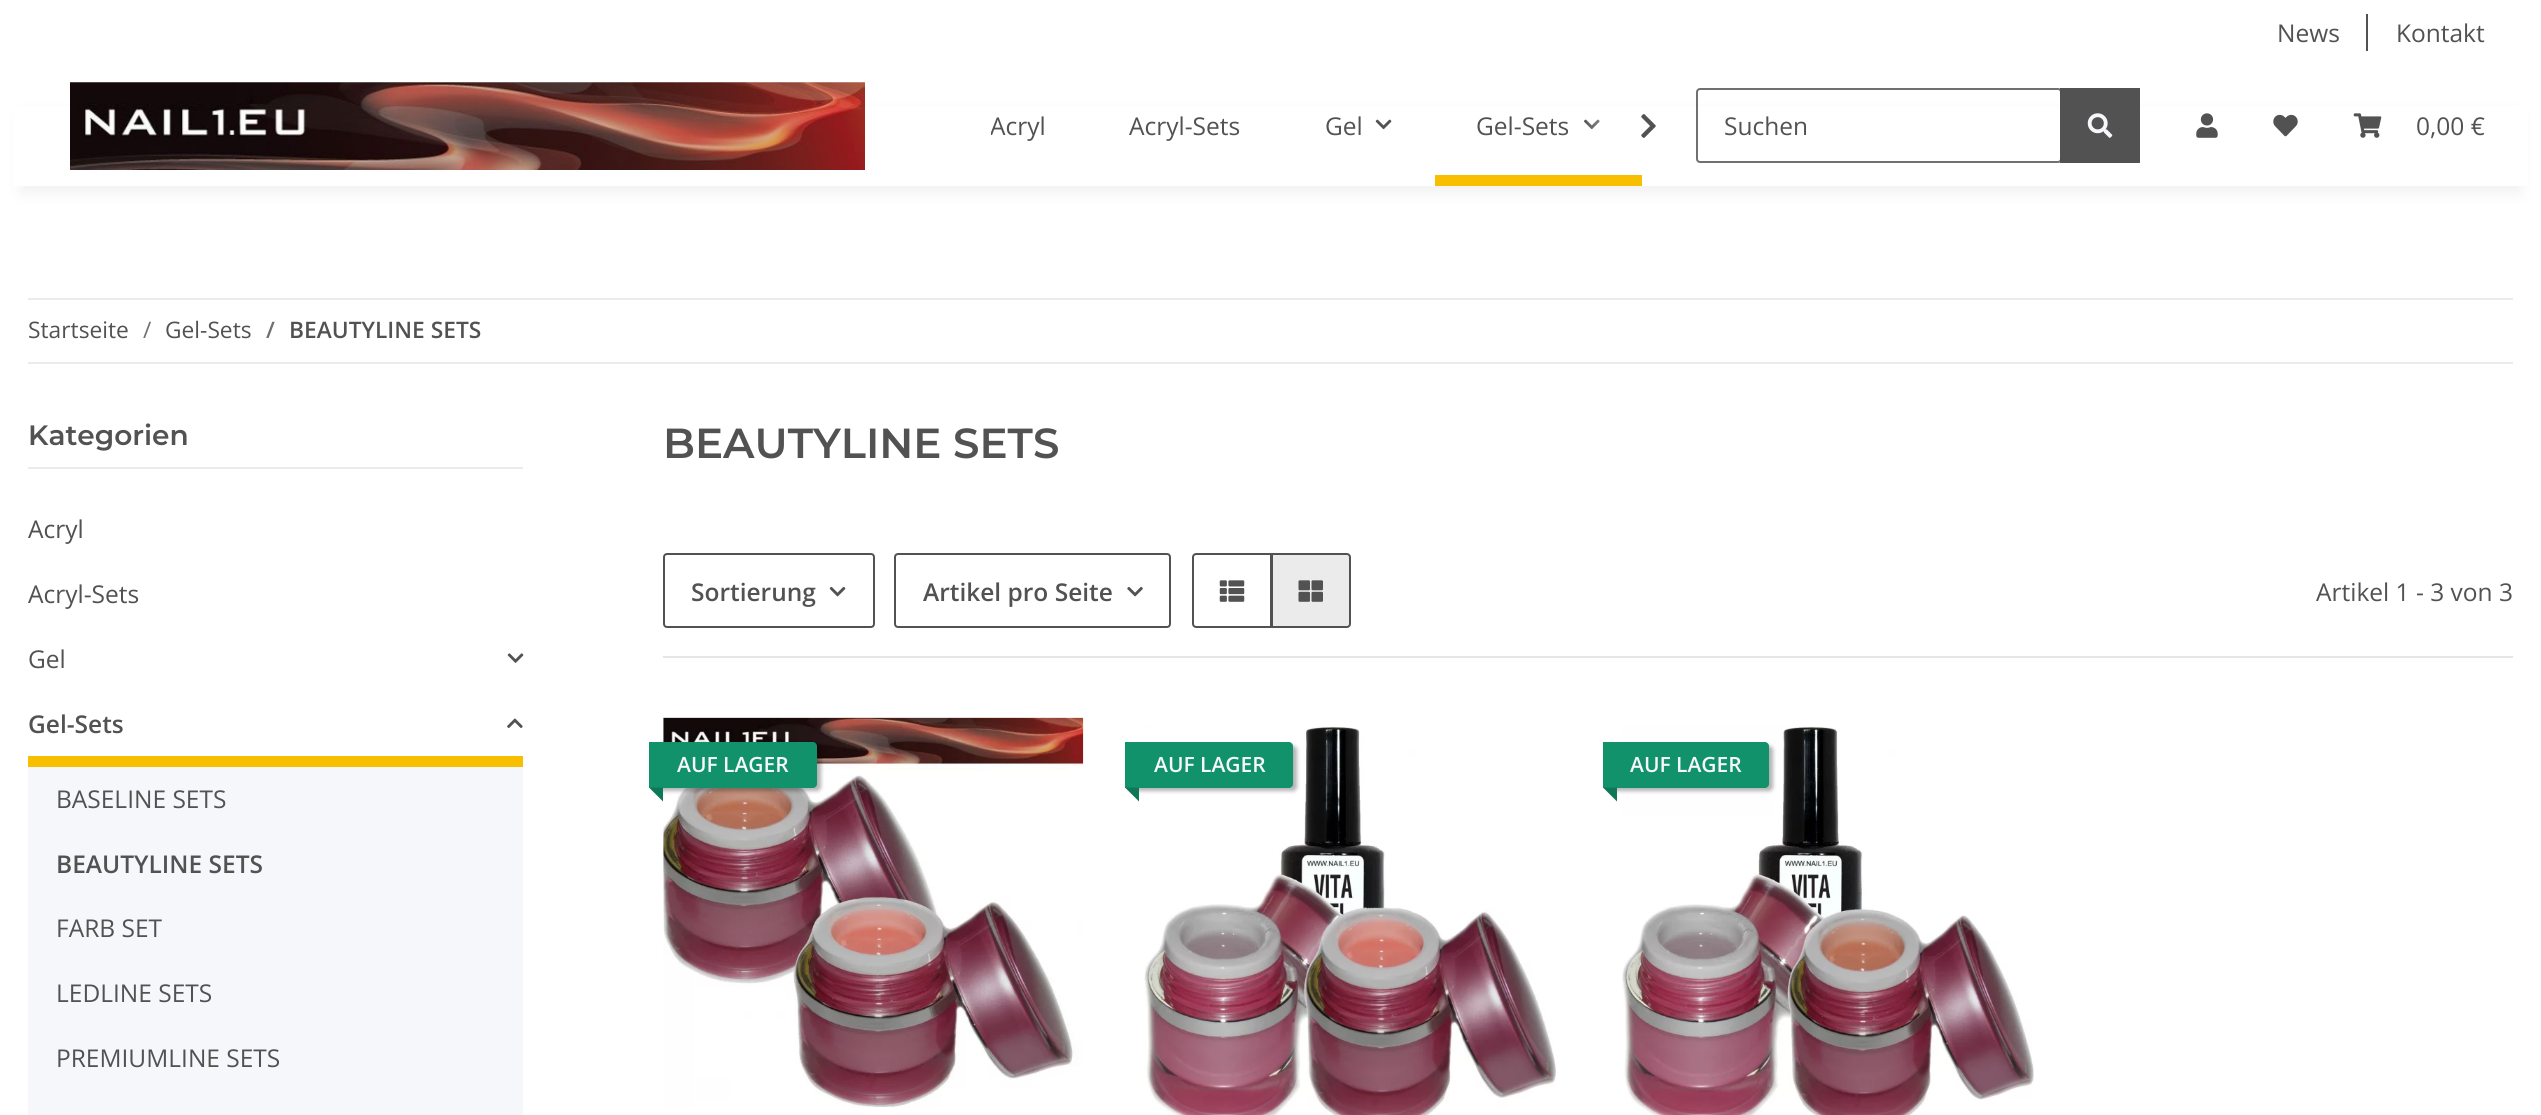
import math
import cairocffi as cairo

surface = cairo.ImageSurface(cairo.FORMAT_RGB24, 2541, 1115)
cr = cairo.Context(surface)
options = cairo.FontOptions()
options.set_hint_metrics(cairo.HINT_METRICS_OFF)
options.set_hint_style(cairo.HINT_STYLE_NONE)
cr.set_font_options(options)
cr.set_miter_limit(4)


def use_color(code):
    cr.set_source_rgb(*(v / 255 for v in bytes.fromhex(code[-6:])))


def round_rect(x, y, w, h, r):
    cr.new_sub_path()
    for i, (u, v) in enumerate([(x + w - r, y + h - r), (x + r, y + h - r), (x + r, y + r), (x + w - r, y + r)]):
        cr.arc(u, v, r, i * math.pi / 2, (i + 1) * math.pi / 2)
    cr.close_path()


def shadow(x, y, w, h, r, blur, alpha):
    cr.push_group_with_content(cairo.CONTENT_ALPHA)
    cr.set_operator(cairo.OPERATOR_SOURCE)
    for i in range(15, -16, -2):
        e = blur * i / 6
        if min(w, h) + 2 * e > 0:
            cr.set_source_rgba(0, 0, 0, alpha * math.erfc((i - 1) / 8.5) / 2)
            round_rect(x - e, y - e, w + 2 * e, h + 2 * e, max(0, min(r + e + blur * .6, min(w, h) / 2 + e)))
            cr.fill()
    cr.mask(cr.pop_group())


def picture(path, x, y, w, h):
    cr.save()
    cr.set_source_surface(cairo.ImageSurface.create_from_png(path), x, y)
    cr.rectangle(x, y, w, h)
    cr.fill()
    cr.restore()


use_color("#ffffff")
cr.paint()
cr.select_font_face("Open Sans")
cr.set_font_size(24.5)
use_color("#525252")
cr.move_to(2277, 42)
cr.show_text("News")
cr.rectangle(2366, 14, 2, 37)
cr.fill()
cr.move_to(2396, 42)
cr.show_text("Kontakt")
use_color("#000000")
shadow(21, 114, 2499, 79, 0, 8, 0.06)
use_color("#ffffff")
cr.rectangle(13, 106, 2515, 80)
cr.fill()
picture("img1.png", 70, 82, 795, 88)
cr.save()
cr.rectangle(991, 107, 54, 37)
cr.clip()
use_color("#525252")
cr.move_to(990, 135)
cr.show_text("Acryl")
cr.restore()
use_color("#525252")
cr.move_to(1129, 135)
cr.show_text("Acryl-Sets")
cr.move_to(1325, 135)
cr.show_text("Gel")
picture("img2.png", 1375, 119, 17, 11)
cr.move_to(1476, 135)
cr.show_text("Gel-Sets")
picture("img3.png", 1584, 119, 16, 11)
use_color("#f8bf00")
cr.rectangle(1435, 175, 207, 11)
cr.fill()
gradient = cairo.LinearGradient(1584, 126, 1668, 126)
gradient.add_color_stop_rgba(0, 1, 1, 1, 0.01)
gradient.add_color_stop_rgba(0.7, 1, 1, 1, 1)
cr.set_source(gradient)
cr.rectangle(1585, 119, 15, 10)
cr.fill()
picture("img4.png", 1641, 114, 15, 24)
round_rect(1697, 89, 364, 73, 3)
use_color("#707070")
cr.stroke()
use_color("#525252")
cr.move_to(1724, 135)
cr.show_text("Suchen")
cr.rectangle(2060, 88, 80, 75)
cr.fill()
picture("img5.png", 2087, 113, 26, 25)
picture("img6.png", 2196, 113, 22, 25)
picture("img7.png", 2273, 114, 25, 23)
picture("img8.png", 2353, 113, 29, 25)
cr.move_to(2416, 135)
cr.show_text("0,00 €")
use_color("#ebebeb")
cr.rectangle(28, 298, 2485, 2)
cr.fill()
cr.rectangle(28, 362, 2485, 2)
cr.fill()
cr.set_font_size(22.75)
use_color("#525252")
cr.move_to(28, 338)
cr.show_text("Startseite")
use_color("#707070")
cr.move_to(143, 338)
cr.show_text("/")
use_color("#525252")
cr.move_to(165, 338)
cr.show_text("Gel-Sets")
cr.select_font_face("Open Sans SemiBold")
use_color("#707070")
cr.move_to(266, 338)
cr.show_text("/")
use_color("#525252")
cr.move_to(289, 338)
cr.show_text("BEAUTYLINE SETS")
use_color("#ebebeb")
cr.rectangle(28, 467, 495, 2)
cr.fill()
cr.select_font_face("Montserrat SemiBold")
cr.set_font_size(28)
use_color("#525252")
cr.move_to(28, 445)
cr.show_text("Kategorien")
cr.select_font_face("Open Sans")
cr.set_font_size(24.5)
cr.move_to(28, 538)
cr.show_text("Acryl")
cr.move_to(28, 603)
cr.show_text("Acryl-Sets")
cr.move_to(28, 668)
cr.show_text("Gel")
picture("img9.png", 507, 653, 17, 10)
use_color("#f8bf00")
cr.rectangle(28, 756, 495, 11)
cr.fill()
cr.select_font_face("Open Sans SemiBold")
use_color("#525252")
cr.move_to(28, 733)
cr.show_text("Gel-Sets")
picture("img10.png", 507, 718, 16, 10)
use_color("#f5f7fa")
cr.rectangle(28, 767, 495, 348)
cr.fill()
cr.select_font_face("Open Sans")
use_color("#525252")
cr.move_to(56, 808)
cr.show_text("BASELINE SETS")
cr.select_font_face("Open Sans SemiBold")
cr.move_to(56, 873)
cr.show_text("BEAUTYLINE SETS")
cr.select_font_face("Open Sans")
cr.move_to(56, 937)
cr.show_text("FARB SET")
cr.move_to(56, 1002)
cr.show_text("LEDLINE SETS")
cr.move_to(56, 1067)
cr.show_text("PREMIUMLINE SETS")
cr.select_font_face("Montserrat SemiBold")
cr.set_font_size(42)
cr.move_to(663, 458)
cr.show_text("BEAUTYLINE SETS")
round_rect(664, 554, 210, 73, 3)
cr.stroke()
cr.select_font_face("Open Sans SemiBold")
cr.set_font_size(24.5)
cr.move_to(691, 601)
cr.show_text("Sortierung")
picture("img11.png", 829, 586, 17, 11)
round_rect(895, 554, 275, 73, 3)
cr.stroke()
cr.move_to(923, 601)
cr.show_text("Artikel pro Seite")
picture("img12.png", 1127, 586, 16, 11)
cr.new_path()
cr.move_to(1196, 554)
cr.line_to(1271, 554)
cr.line_to(1271, 627)
cr.line_to(1196, 627)
cr.curve_to(1194.5, 627, 1193, 625.5, 1193, 624)
cr.line_to(1193, 557)
cr.curve_to(1193, 555.5, 1194.5, 554, 1196, 554)
cr.close_path()
cr.stroke()
picture("img13.png", 1219, 580, 26, 22)
use_color("#ebebeb")
cr.new_path()
cr.move_to(1272, 554)
cr.line_to(1347, 554)
cr.curve_to(1348.5, 554, 1350, 555.5, 1350, 557)
cr.line_to(1350, 624)
cr.curve_to(1350, 625.5, 1348.5, 627, 1347, 627)
cr.line_to(1272, 627)
cr.close_path()
cr.fill_preserve()
use_color("#525252")
cr.stroke()
picture("img14.png", 1298, 580, 25, 22)
cr.select_font_face("Open Sans")
cr.move_to(2316, 601)
cr.show_text("Artikel 1 - 3 von 3")
use_color("#e6e6e6")
cr.rectangle(663, 656, 1850, 2)
cr.fill()
picture("img15.png", 663, 717, 421, 391)
use_color("#000000")
shadow(653, 746, 168, 45, 4, 2, 0.3)
use_color("#11926b")
cr.new_path()
cr.move_to(649, 742)
cr.line_to(813, 742)
cr.curve_to(815, 742, 817, 744, 817, 746)
cr.line_to(817, 784)
cr.curve_to(817, 786, 815, 788, 813, 788)
cr.line_to(649, 788)
cr.close_path()
cr.fill()
cr.select_font_face("Open Sans SemiBold")
cr.set_font_size(21)
use_color("#f5f7fa")
cr.move_to(677, 772)
cr.show_text("AUF LAGER")
use_color("#0e7757")
cr.new_path()
cr.move_to(663, 787.5)
cr.line_to(663, 801.5)
cr.line_to(649, 787.5)
cr.close_path()
cr.fill()
picture("img16.png", 1144, 726, 412, 389)
use_color("#000000")
shadow(1129, 746, 168, 45, 4, 2, 0.3)
use_color("#11926b")
cr.new_path()
cr.move_to(1125, 742)
cr.line_to(1289, 742)
cr.curve_to(1291, 742, 1293, 744, 1293, 746)
cr.line_to(1293, 784)
cr.curve_to(1293, 786, 1291, 788, 1289, 788)
cr.line_to(1125, 788)
cr.close_path()
cr.fill()
use_color("#f5f7fa")
cr.move_to(1154, 772)
cr.show_text("AUF LAGER")
use_color("#0e7757")
cr.new_path()
cr.move_to(1139, 787.5)
cr.line_to(1139, 801.5)
cr.line_to(1125, 787.5)
cr.close_path()
cr.fill()
picture("img17.png", 1622, 726, 412, 389)
use_color("#000000")
shadow(1607, 746, 166, 45, 4, 2, 0.3)
use_color("#11926b")
cr.new_path()
cr.move_to(1603, 742)
cr.line_to(1765, 742)
cr.curve_to(1767, 742, 1769, 744, 1769, 746)
cr.line_to(1769, 784)
cr.curve_to(1769, 786, 1767, 788, 1765, 788)
cr.line_to(1603, 788)
cr.close_path()
cr.fill()
use_color("#f5f7fa")
cr.move_to(1630, 772)
cr.show_text("AUF LAGER")
use_color("#0e7757")
cr.new_path()
cr.move_to(1617, 787.5)
cr.line_to(1617, 801.5)
cr.line_to(1603, 787.5)
cr.close_path()
cr.fill()
surface.write_to_png("result.png")
